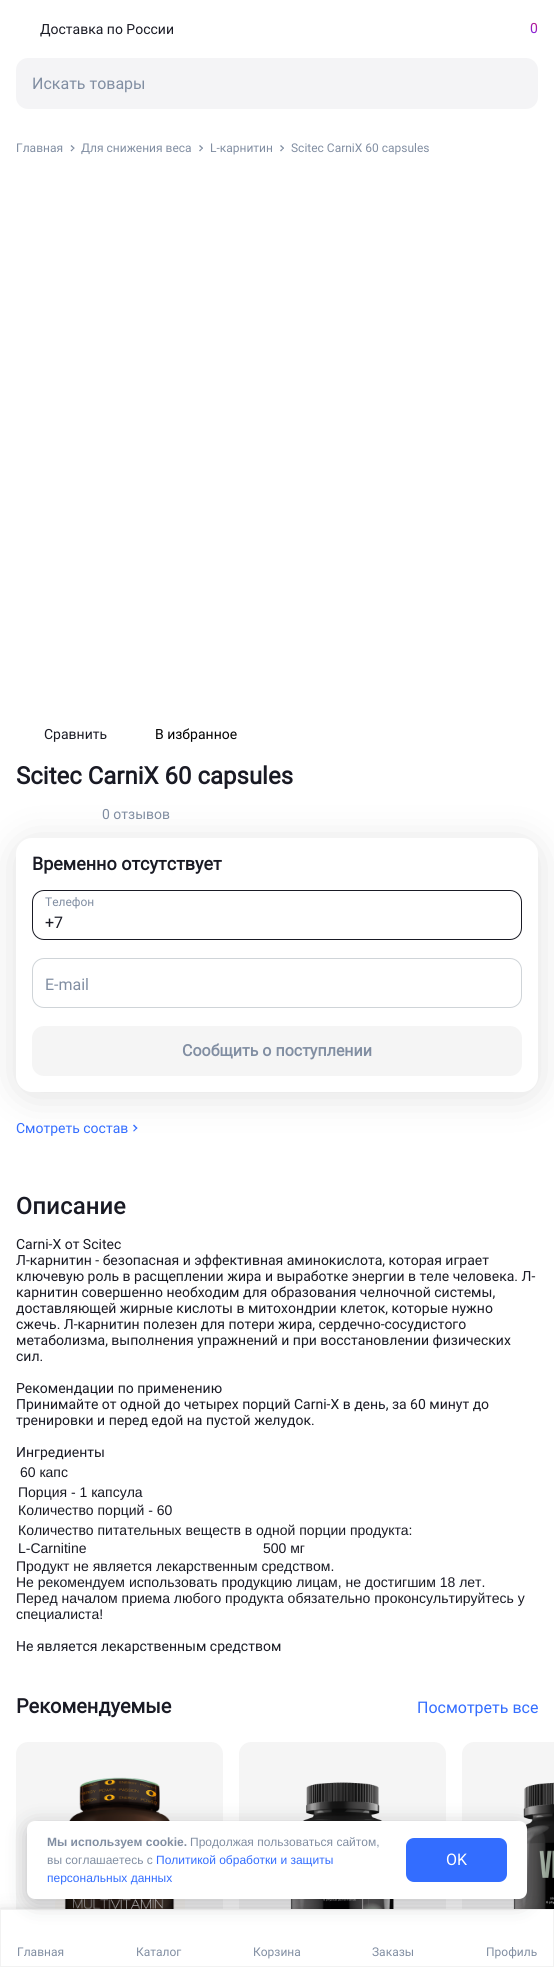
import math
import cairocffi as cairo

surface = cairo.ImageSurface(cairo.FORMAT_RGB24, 554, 1967)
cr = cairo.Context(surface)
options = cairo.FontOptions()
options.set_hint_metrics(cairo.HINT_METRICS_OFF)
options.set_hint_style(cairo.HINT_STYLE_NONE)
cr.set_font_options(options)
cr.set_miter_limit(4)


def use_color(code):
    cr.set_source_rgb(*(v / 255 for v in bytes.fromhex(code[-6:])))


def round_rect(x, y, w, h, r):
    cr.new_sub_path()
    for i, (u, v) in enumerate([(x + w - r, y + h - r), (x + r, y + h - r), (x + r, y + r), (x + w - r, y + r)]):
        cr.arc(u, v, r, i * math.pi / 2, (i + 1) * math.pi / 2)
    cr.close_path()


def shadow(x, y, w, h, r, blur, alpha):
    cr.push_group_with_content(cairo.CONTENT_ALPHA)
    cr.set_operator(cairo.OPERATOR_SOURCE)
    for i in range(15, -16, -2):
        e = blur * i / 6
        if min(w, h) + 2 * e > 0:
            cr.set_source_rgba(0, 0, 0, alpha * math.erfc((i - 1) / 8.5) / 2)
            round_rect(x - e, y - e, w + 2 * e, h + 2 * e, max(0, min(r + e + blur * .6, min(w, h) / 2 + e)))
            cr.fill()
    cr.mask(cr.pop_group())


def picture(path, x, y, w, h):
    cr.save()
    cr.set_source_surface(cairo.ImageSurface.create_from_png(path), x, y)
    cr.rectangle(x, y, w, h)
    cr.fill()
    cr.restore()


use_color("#ffffff")
cr.paint()
cr.select_font_face("Roboto")
cr.set_font_size(14)
use_color("#191a24")
cr.move_to(40, 34)
cr.show_text("Доставка по России")
gradient = cairo.LinearGradient(538, 20, 530, 36)
gradient.add_color_stop_rgba(0, 0.804, 0.094, 0.439, 1)
gradient.add_color_stop_rgba(1, 0.431, 0.137, 0.984, 1)
cr.set_source(gradient)
cr.move_to(530, 33)
cr.show_text("0")
use_color("#f4f4f6")
round_rect(16, 58, 522, 51, 12)
cr.fill()
cr.set_font_size(16)
use_color("#818ea2")
cr.move_to(32, 89)
cr.show_text("Искать товары")
cr.set_font_size(12)
cr.move_to(16, 152)
cr.show_text("Главная")
cr.new_path()
cr.move_to(70.5, 146)
cr.line_to(71.5, 145)
cr.line_to(74.5, 148)
cr.line_to(74, 149)
cr.close_path()
cr.fill()
cr.new_path()
cr.move_to(70.5, 150.5)
cr.line_to(74, 147.5)
cr.line_to(74.5, 148)
cr.line_to(71.5, 151.5)
cr.close_path()
cr.fill()
cr.move_to(81, 152)
cr.show_text("Для снижения веса")
cr.new_path()
cr.move_to(199, 146)
cr.line_to(200, 145)
cr.line_to(203, 148)
cr.line_to(202.5, 149)
cr.close_path()
cr.fill()
cr.new_path()
cr.move_to(199, 150.5)
cr.line_to(202.5, 147.5)
cr.line_to(203, 148)
cr.line_to(200, 151.5)
cr.close_path()
cr.fill()
cr.move_to(210, 152)
cr.show_text("L-карнитин")
cr.new_path()
cr.move_to(280, 146)
cr.line_to(281, 145)
cr.line_to(284, 148)
cr.line_to(283.5, 149)
cr.close_path()
cr.fill()
cr.new_path()
cr.move_to(280, 150.5)
cr.line_to(283.5, 147.5)
cr.line_to(284, 148)
cr.line_to(281, 151.5)
cr.close_path()
cr.fill()
cr.move_to(291, 152)
cr.show_text("Scitec CarniX 60 capsules")
cr.set_font_size(14)
use_color("#191a24")
cr.move_to(44, 739)
cr.show_text("Сравнить")
use_color("#000000")
cr.move_to(155, 739)
cr.show_text("В избранное")
cr.select_font_face("Roboto", cairo.FONT_SLANT_NORMAL, cairo.FONT_WEIGHT_BOLD)
cr.set_font_size(24)
use_color("#191a24")
cr.move_to(16, 784)
cr.show_text("Scitec CarniX 60 capsules")
cr.select_font_face("Roboto")
cr.set_font_size(14)
use_color("#818ea2")
cr.move_to(102, 819)
cr.show_text("0 отзывов")
use_color("#000000")
shadow(16, 842, 522, 254, 16, 20, 0.12)
use_color("#ffffff")
round_rect(16, 838, 522, 254, 16)
cr.fill()
cr.select_font_face("Roboto", cairo.FONT_SLANT_NORMAL, cairo.FONT_WEIGHT_BOLD)
cr.set_font_size(18)
use_color("#191a24")
cr.move_to(32, 870)
cr.show_text("Временно отсутствует")
round_rect(32.5, 890.5, 489, 49, 11.5)
cr.set_line_width(1)
cr.stroke()
cr.select_font_face("Roboto")
cr.set_font_size(12)
use_color("#818ea2")
cr.move_to(45, 906)
cr.show_text("Телефон")
cr.set_font_size(16)
use_color("#191a24")
cr.move_to(45, 928)
cr.show_text("+7")
round_rect(32.5, 958.5, 489, 49, 11.5)
use_color("#cfd4d8")
cr.stroke()
use_color("#818ea2")
cr.move_to(45, 990)
cr.show_text("E-mail")
use_color("#f5f5f5")
round_rect(32, 1026, 490, 50, 12)
cr.fill()
cr.select_font_face("Roboto", cairo.FONT_SLANT_NORMAL, cairo.FONT_WEIGHT_BOLD)
use_color("#818ea2")
cr.move_to(182, 1056)
cr.show_text("Сообщить о поступлении")
cr.select_font_face("Roboto")
cr.set_font_size(14)
use_color("#336dff")
cr.move_to(16, 1133)
cr.show_text("Смотреть состав")
cr.new_path()
cr.move_to(134, 1124.5)
cr.line_to(137.5, 1128)
cr.line_to(136.5, 1129)
cr.line_to(133, 1125.5)
cr.close_path()
cr.fill()
cr.new_path()
cr.move_to(136.5, 1127.5)
cr.line_to(137.5, 1128)
cr.line_to(134, 1131.5)
cr.line_to(133, 1131)
cr.close_path()
cr.fill()
cr.select_font_face("Roboto Medium")
cr.set_font_size(24)
use_color("#191a24")
cr.move_to(16, 1214)
cr.show_text("Описание")
cr.select_font_face("Roboto")
cr.set_font_size(14)
cr.move_to(16, 1249)
cr.show_text("Carni-X от Scitec")
cr.move_to(16, 1265)
cr.show_text("Л-карнитин - безопасная и эффективная аминокислота, которая играет")
cr.move_to(16, 1281)
cr.show_text("ключевую роль в расщеплении жира и выработке энергии в теле человека. Л-")
cr.move_to(16, 1297)
cr.show_text("карнитин совершенно необходим для образования челночной системы,")
cr.move_to(16, 1313)
cr.show_text("доставляющей жирные кислоты в митохондрии клеток, которые нужно")
cr.move_to(16, 1329)
cr.show_text("сжечь. Л-карнитин полезен для потери жира, сердечно-сосудистого")
cr.move_to(16, 1345)
cr.show_text("метаболизма, выполнения упражнений и при восстановлении физических")
cr.move_to(16, 1361)
cr.show_text("сил.")
cr.move_to(16, 1393)
cr.show_text("Рекомендации по применению")
cr.move_to(16, 1409)
cr.show_text("Принимайте от одной до четырех порций Carni-X в день, за 60 минут до")
cr.move_to(16, 1425)
cr.show_text("тренировки и перед едой на пустой желудок.")
cr.move_to(16, 1457)
cr.show_text("Ингредиенты")
cr.select_font_face("Liberation Sans")
cr.move_to(20, 1477)
cr.show_text("60 капс")
cr.move_to(18, 1497)
cr.show_text("Порция - 1 капсула")
cr.move_to(18, 1515)
cr.show_text("Количество порций - 60")
cr.move_to(18, 1535)
cr.show_text("Количество питательных веществ в одной порции продукта:")
cr.move_to(18, 1553)
cr.show_text("L-Carnitine")
cr.move_to(263, 1553)
cr.show_text("500 мг")
cr.move_to(16, 1571)
cr.show_text("Продукт не является лекарственным средством.")
cr.move_to(16, 1587)
cr.show_text("Не рекомендуем использовать продукцию лицам, не достигшим 18 лет.")
cr.move_to(16, 1603)
cr.show_text("Перед началом приема любого продукта обязательно проконсультируйтесь у")
cr.move_to(16, 1619)
cr.show_text("специалиста!")
cr.select_font_face("Roboto")
cr.move_to(16, 1651)
cr.show_text("Не является лекарственным средством")
cr.select_font_face("Roboto", cairo.FONT_SLANT_NORMAL, cairo.FONT_WEIGHT_BOLD)
cr.set_font_size(20)
cr.move_to(16, 1713)
cr.show_text("Рекомендуемые")
cr.select_font_face("Roboto")
cr.set_font_size(16)
use_color("#336dff")
cr.move_to(417, 1713)
cr.show_text("Посмотреть все")
use_color("#f5f5f5")
round_rect(16, 1742, 207, 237, 12)
cr.fill()
picture("img1.png", 55, 1777, 130, 132)
round_rect(239, 1742, 207, 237, 12)
cr.fill()
picture("img2.png", 290, 1782, 105, 127)
cr.new_path()
cr.move_to(474, 1742)
cr.line_to(554, 1742)
cr.line_to(554, 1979)
cr.line_to(474, 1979)
cr.curve_to(467.5, 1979, 462, 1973.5, 462, 1967)
cr.line_to(462, 1754)
cr.curve_to(462, 1747.5, 467.5, 1742, 474, 1742)
cr.close_path()
cr.fill()
picture("img3.png", 513, 1782, 41, 127)
use_color("#000000")
shadow(0, 1915, 554, 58, 0, 10, 0.19)
shadow(0, 1913, 554, 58, 0, 4, 0.2)
use_color("#ffffff")
cr.rectangle(0.5, 1909.5, 553, 57)
cr.fill_preserve()
use_color("#f2f2f2")
cr.stroke()
use_color("#191a23")
shadow(27, 1825, 500, 78, 8, 10, 0.25)
use_color("#ffffff")
round_rect(27, 1821, 500, 78, 8)
cr.fill()
cr.select_font_face("Liberation Sans", cairo.FONT_SLANT_NORMAL, cairo.FONT_WEIGHT_BOLD)
cr.set_font_size(12)
use_color("#818ea2")
cr.move_to(47, 1846)
cr.show_text("Мы используем cookie.")
cr.select_font_face("Liberation Sans")
cr.move_to(190, 1846)
cr.show_text("Продолжая пользоваться сайтом,")
cr.move_to(47, 1864)
cr.show_text("вы соглашаетесь с")
use_color("#336dff")
cr.move_to(156, 1864)
cr.show_text("Политикой обработки и защиты")
cr.move_to(47, 1882)
cr.show_text("персональных данных")
round_rect(407, 1839, 99, 42, 7)
cr.fill_preserve()
cr.set_line_width(2)
cr.stroke()
cr.select_font_face("Roboto")
cr.set_font_size(16)
use_color("#ffffff")
cr.move_to(446, 1865)
cr.show_text("OK")
cr.set_font_size(12)
use_color("#818ea2")
cr.move_to(17, 1956)
cr.show_text("Главная")
cr.move_to(136, 1956)
cr.show_text("Каталог")
cr.move_to(253, 1956)
cr.show_text("Корзина")
cr.move_to(372, 1956)
cr.show_text("Заказы")
cr.move_to(486, 1956)
cr.show_text("Профиль")
surface.write_to_png("result.png")
